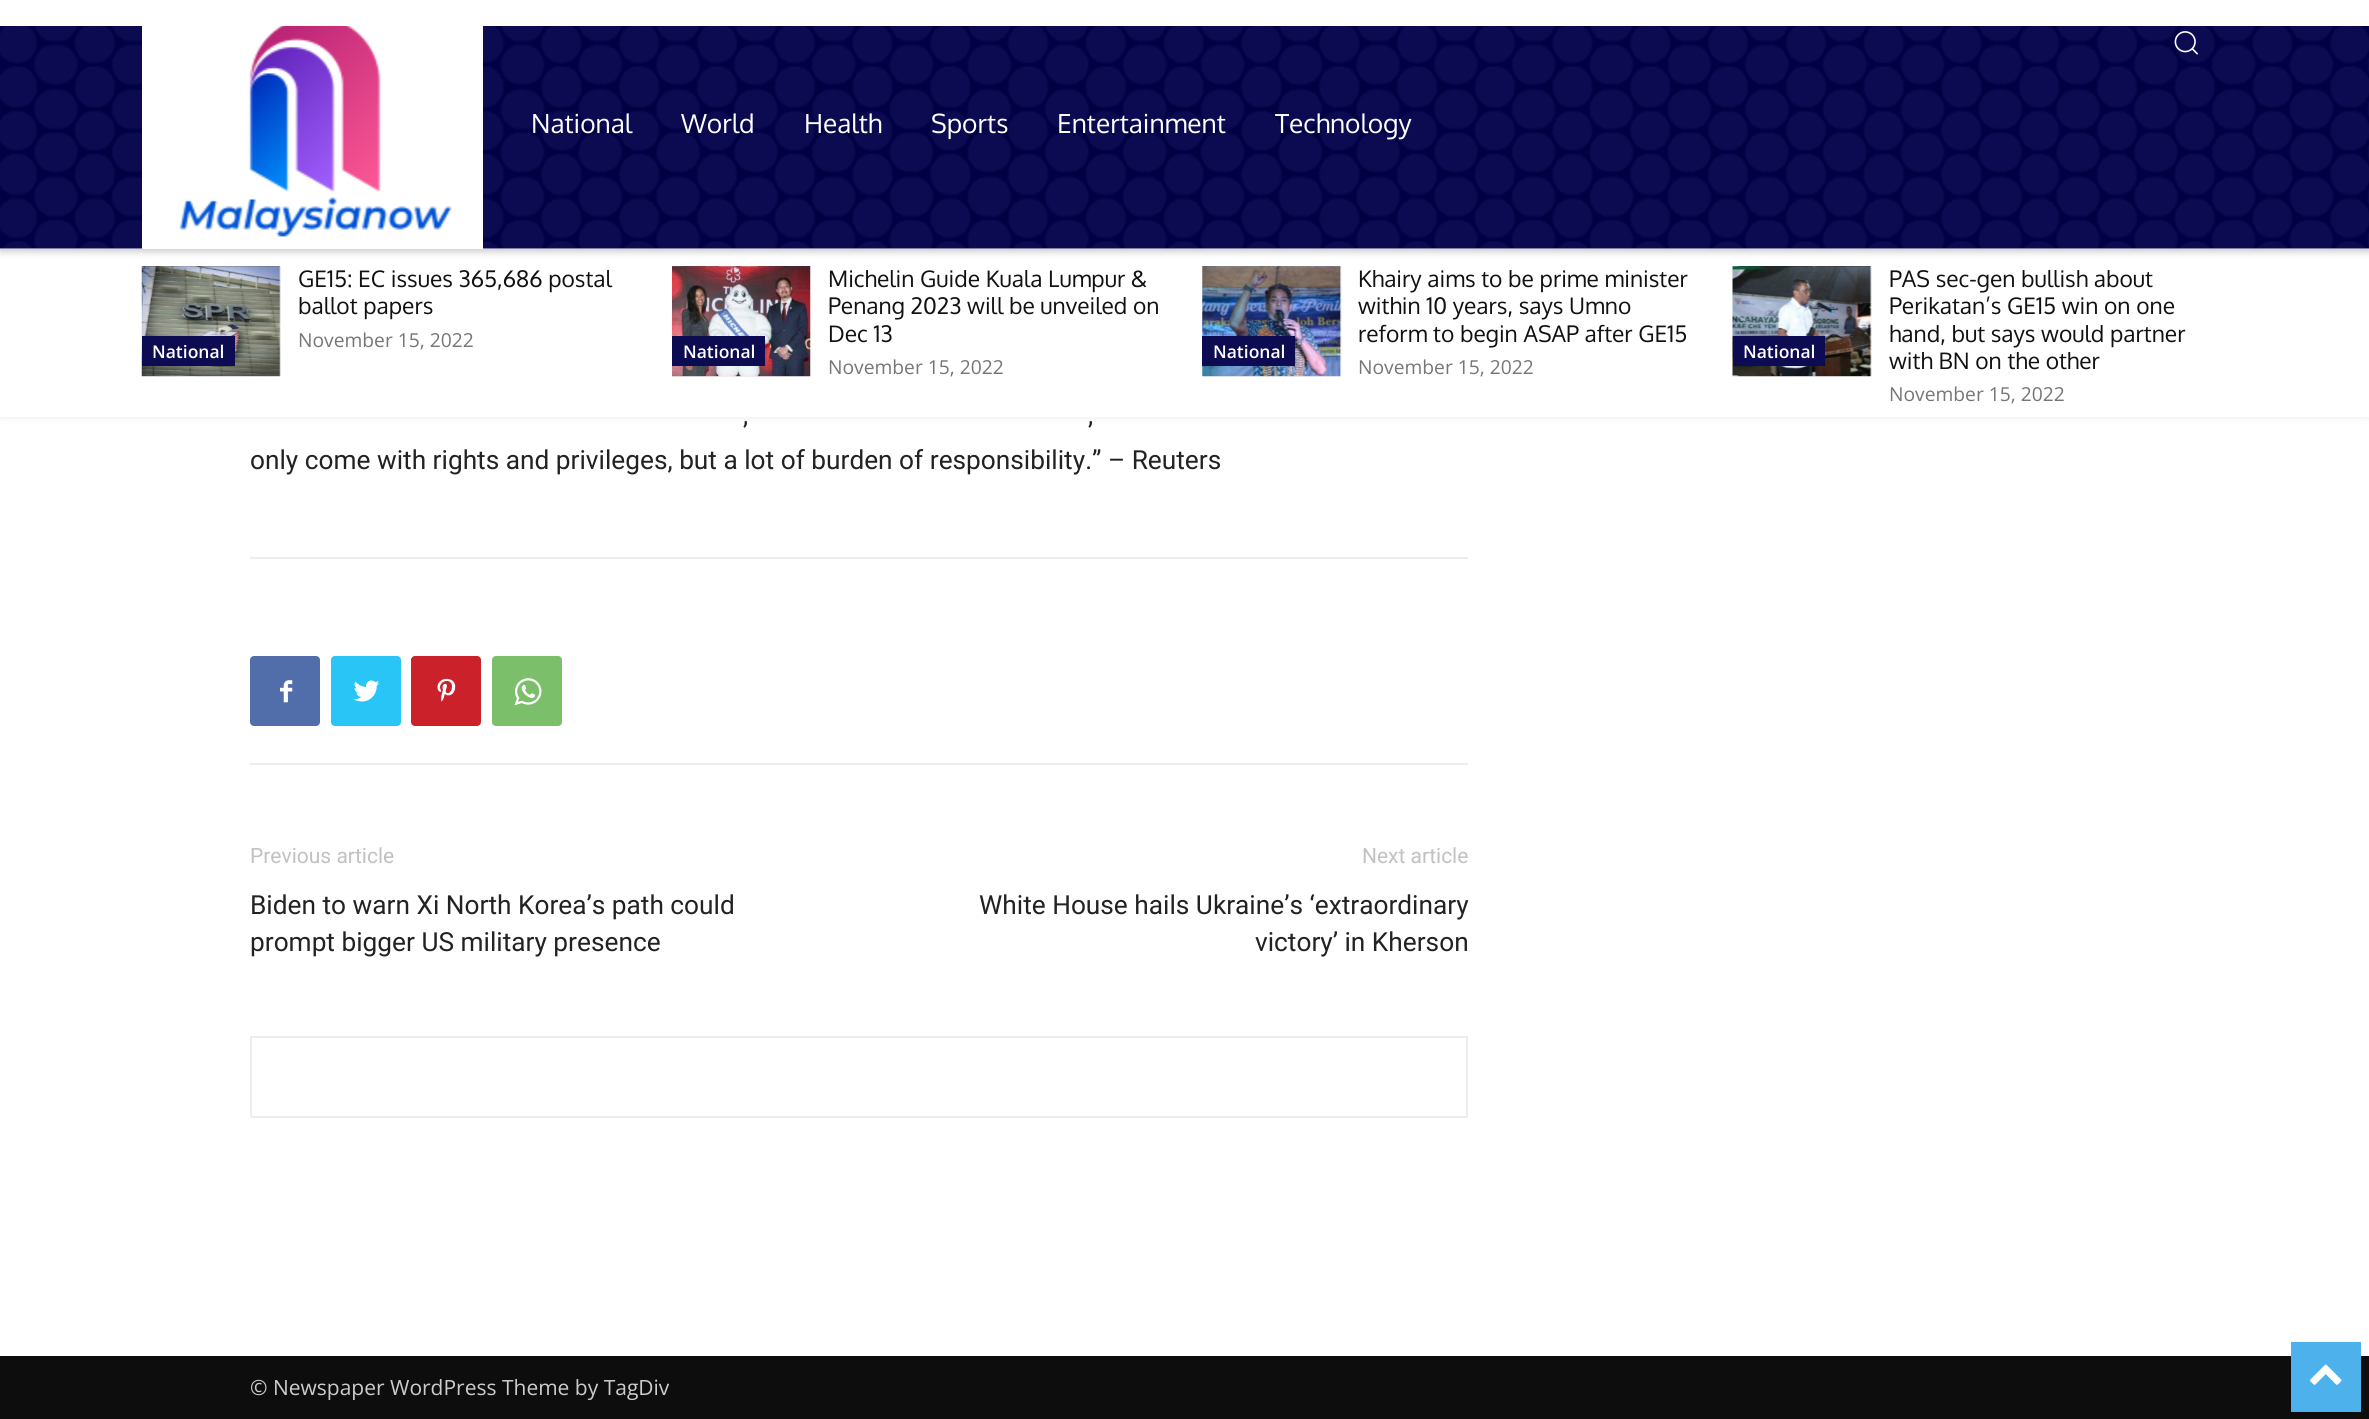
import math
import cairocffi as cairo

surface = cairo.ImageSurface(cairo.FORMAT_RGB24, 2369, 1419)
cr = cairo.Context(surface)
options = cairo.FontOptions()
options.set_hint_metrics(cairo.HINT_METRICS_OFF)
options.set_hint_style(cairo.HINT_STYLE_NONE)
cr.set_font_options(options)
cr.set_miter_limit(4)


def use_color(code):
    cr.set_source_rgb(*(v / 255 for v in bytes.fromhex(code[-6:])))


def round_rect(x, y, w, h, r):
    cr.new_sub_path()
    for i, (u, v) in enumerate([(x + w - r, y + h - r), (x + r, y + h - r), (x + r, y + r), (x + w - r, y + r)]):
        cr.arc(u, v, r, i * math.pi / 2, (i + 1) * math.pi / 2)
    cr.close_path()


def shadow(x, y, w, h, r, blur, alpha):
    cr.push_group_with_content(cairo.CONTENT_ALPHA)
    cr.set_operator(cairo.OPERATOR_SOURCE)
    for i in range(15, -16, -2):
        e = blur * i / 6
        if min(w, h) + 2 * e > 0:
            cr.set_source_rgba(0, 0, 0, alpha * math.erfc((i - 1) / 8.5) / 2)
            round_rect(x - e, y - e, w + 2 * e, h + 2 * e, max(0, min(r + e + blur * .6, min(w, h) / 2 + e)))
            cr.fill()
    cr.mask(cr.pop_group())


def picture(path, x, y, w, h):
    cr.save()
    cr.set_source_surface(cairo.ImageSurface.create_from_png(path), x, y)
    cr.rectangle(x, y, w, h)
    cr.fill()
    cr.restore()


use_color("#ffffff")
cr.paint()
picture("img1.png", 0, 26, 2369, 223)
use_color("#ffffff")
cr.rectangle(142, 26, 341, 223)
cr.fill()
picture("img2.png", 179, 26, 273, 211)
cr.save()
cr.set_fill_rule(cairo.FILL_RULE_EVEN_ODD)
cr.new_path()
cr.move_to(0, 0)
cr.line_to(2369, 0)
cr.line_to(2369, 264)
cr.line_to(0, 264)
cr.close_path()
cr.move_to(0, 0)
cr.line_to(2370, 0)
cr.line_to(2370, 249)
cr.line_to(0, 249)
cr.close_path()
cr.clip()
use_color("#000000")
shadow(0, 4, 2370, 248, 0, 3.5, 0.2)
cr.restore()
picture("img3.png", 2174, 31, 24, 24)
cr.select_font_face("Oxygen")
cr.set_font_size(26.25)
cr.move_to(531, 133)
cr.show_text("National")
cr.move_to(681, 133)
cr.show_text("World")
cr.move_to(804, 133)
cr.show_text("Health")
cr.move_to(931, 133)
cr.show_text("Sports")
cr.move_to(1057, 133)
cr.show_text("Entertainment")
cr.move_to(1275, 133)
cr.show_text("Technology")
picture("img4.png", 141, 266, 140, 111)
use_color("#0d0b52")
cr.rectangle(142, 336, 93, 30)
cr.fill()
picture("img5.png", 672, 266, 139, 111)
cr.rectangle(672, 336, 93, 30)
cr.fill()
picture("img6.png", 1202, 266, 140, 111)
cr.rectangle(1202, 336, 93, 30)
cr.fill()
picture("img7.png", 1732, 266, 140, 111)
cr.rectangle(1733, 336, 92, 30)
cr.fill()
cr.save()
cr.set_fill_rule(cairo.FILL_RULE_EVEN_ODD)
cr.new_path()
cr.move_to(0, 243)
cr.line_to(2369, 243)
cr.line_to(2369, 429)
cr.line_to(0, 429)
cr.close_path()
cr.move_to(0, 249)
cr.line_to(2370, 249)
cr.line_to(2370, 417)
cr.line_to(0, 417)
cr.close_path()
cr.clip()
use_color("#000000")
shadow(0, 252, 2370, 168, 0, 2.5, 0.05)
cr.restore()
cr.set_font_size(22.75)
use_color("#111111")
cr.move_to(298, 287)
cr.show_text("GE15: EC issues 365,686 postal")
cr.move_to(298, 314)
cr.show_text("ballot papers")
cr.select_font_face("Open Sans")
cr.set_font_size(19.25)
use_color("#767676")
cr.move_to(298, 347)
cr.show_text("November 15, 2022")
cr.select_font_face("Open Sans SemiBold")
cr.set_font_size(17.5)
use_color("#ffffff")
cr.move_to(152, 358)
cr.show_text("National")
cr.move_to(683, 358)
cr.show_text("National")
cr.select_font_face("Oxygen")
cr.set_font_size(22.75)
use_color("#111111")
cr.move_to(828, 287)
cr.show_text("Michelin Guide Kuala Lumpur &")
cr.move_to(828, 314)
cr.show_text("Penang 2023 will be unveiled on")
cr.move_to(828, 342)
cr.show_text("Dec 13")
cr.select_font_face("Open Sans")
cr.set_font_size(19.25)
use_color("#767676")
cr.move_to(828, 374)
cr.show_text("November 15, 2022")
cr.select_font_face("Open Sans SemiBold")
cr.set_font_size(17.5)
use_color("#ffffff")
cr.move_to(1213, 358)
cr.show_text("National")
cr.select_font_face("Oxygen")
cr.set_font_size(22.75)
use_color("#111111")
cr.move_to(1358, 287)
cr.show_text("Khairy aims to be prime minister")
cr.move_to(1358, 314)
cr.show_text("within 10 years, says Umno")
cr.move_to(1358, 342)
cr.show_text("reform to begin ASAP after GE15")
cr.select_font_face("Open Sans")
cr.set_font_size(19.25)
use_color("#767676")
cr.move_to(1358, 374)
cr.show_text("November 15, 2022")
cr.select_font_face("Open Sans SemiBold")
cr.set_font_size(17.5)
use_color("#ffffff")
cr.move_to(1743, 358)
cr.show_text("National")
cr.select_font_face("Oxygen")
cr.set_font_size(22.75)
use_color("#111111")
cr.move_to(1889, 287)
cr.show_text("PAS sec-gen bullish about")
cr.move_to(1889, 314)
cr.show_text("Perikatan’s GE15 win on one")
cr.move_to(1889, 342)
cr.show_text("hand, but says would partner")
cr.move_to(1889, 369)
cr.show_text("with BN on the other")
cr.select_font_face("Open Sans")
cr.set_font_size(19.25)
use_color("#767676")
cr.move_to(1889, 401)
cr.show_text("November 15, 2022")
cr.select_font_face("Roboto")
cr.set_font_size(26.25)
use_color("#222222")
cr.move_to(743, 424)
cr.show_text(",")
cr.move_to(1088, 424)
cr.show_text(",")
cr.move_to(250, 469)
cr.show_text("only come with rights and privileges, but a lot of burden of responsibility.” – Reuters")
use_color("#ededed")
cr.rectangle(250, 557, 1218, 2)
cr.fill()
cr.rectangle(250, 763, 1218, 2)
cr.fill()
use_color("#516eab")
round_rect(250, 656, 70, 70, 4)
cr.fill()
picture("img8.png", 280, 680, 13, 23)
use_color("#29c5f6")
round_rect(331, 656, 70, 70, 4)
cr.fill()
picture("img9.png", 353, 680, 27, 22)
use_color("#ca212a")
round_rect(411, 656, 70, 70, 4)
cr.fill()
picture("img10.png", 437, 678, 19, 24)
use_color("#7bbf6a")
round_rect(492, 656, 70, 70, 4)
cr.fill()
picture("img11.png", 514, 678, 28, 28)
cr.set_font_size(21)
use_color("#c1c1c1")
cr.move_to(250, 863)
cr.show_text("Previous article")
cr.set_font_size(26.25)
use_color("#222222")
cr.move_to(250, 914)
cr.show_text("Biden to warn Xi North Korea’s path could")
cr.move_to(250, 951)
cr.show_text("prompt bigger US military presence")
cr.set_font_size(21)
use_color("#c1c1c1")
cr.move_to(1362, 863)
cr.show_text("Next article")
cr.set_font_size(26.25)
use_color("#222222")
cr.move_to(979, 914)
cr.show_text("White House hails Ukraine’s ‘extraordinary")
cr.move_to(1255, 951)
cr.show_text("victory’ in Kherson")
cr.rectangle(251, 1037, 1216, 80)
use_color("#ededed")
cr.stroke()
use_color("#0d0d0d")
cr.rectangle(0, 1356, 2369, 63)
cr.fill()
cr.select_font_face("Open Sans")
cr.set_font_size(21)
use_color("#cccccc")
cr.move_to(250, 1395)
cr.show_text("© Newspaper WordPress Theme by TagDiv")
use_color("#4db2ec")
cr.rectangle(2291, 1342, 70, 70)
cr.fill()
picture("img12.png", 2310, 1364, 32, 21)
surface.write_to_png("result.png")
